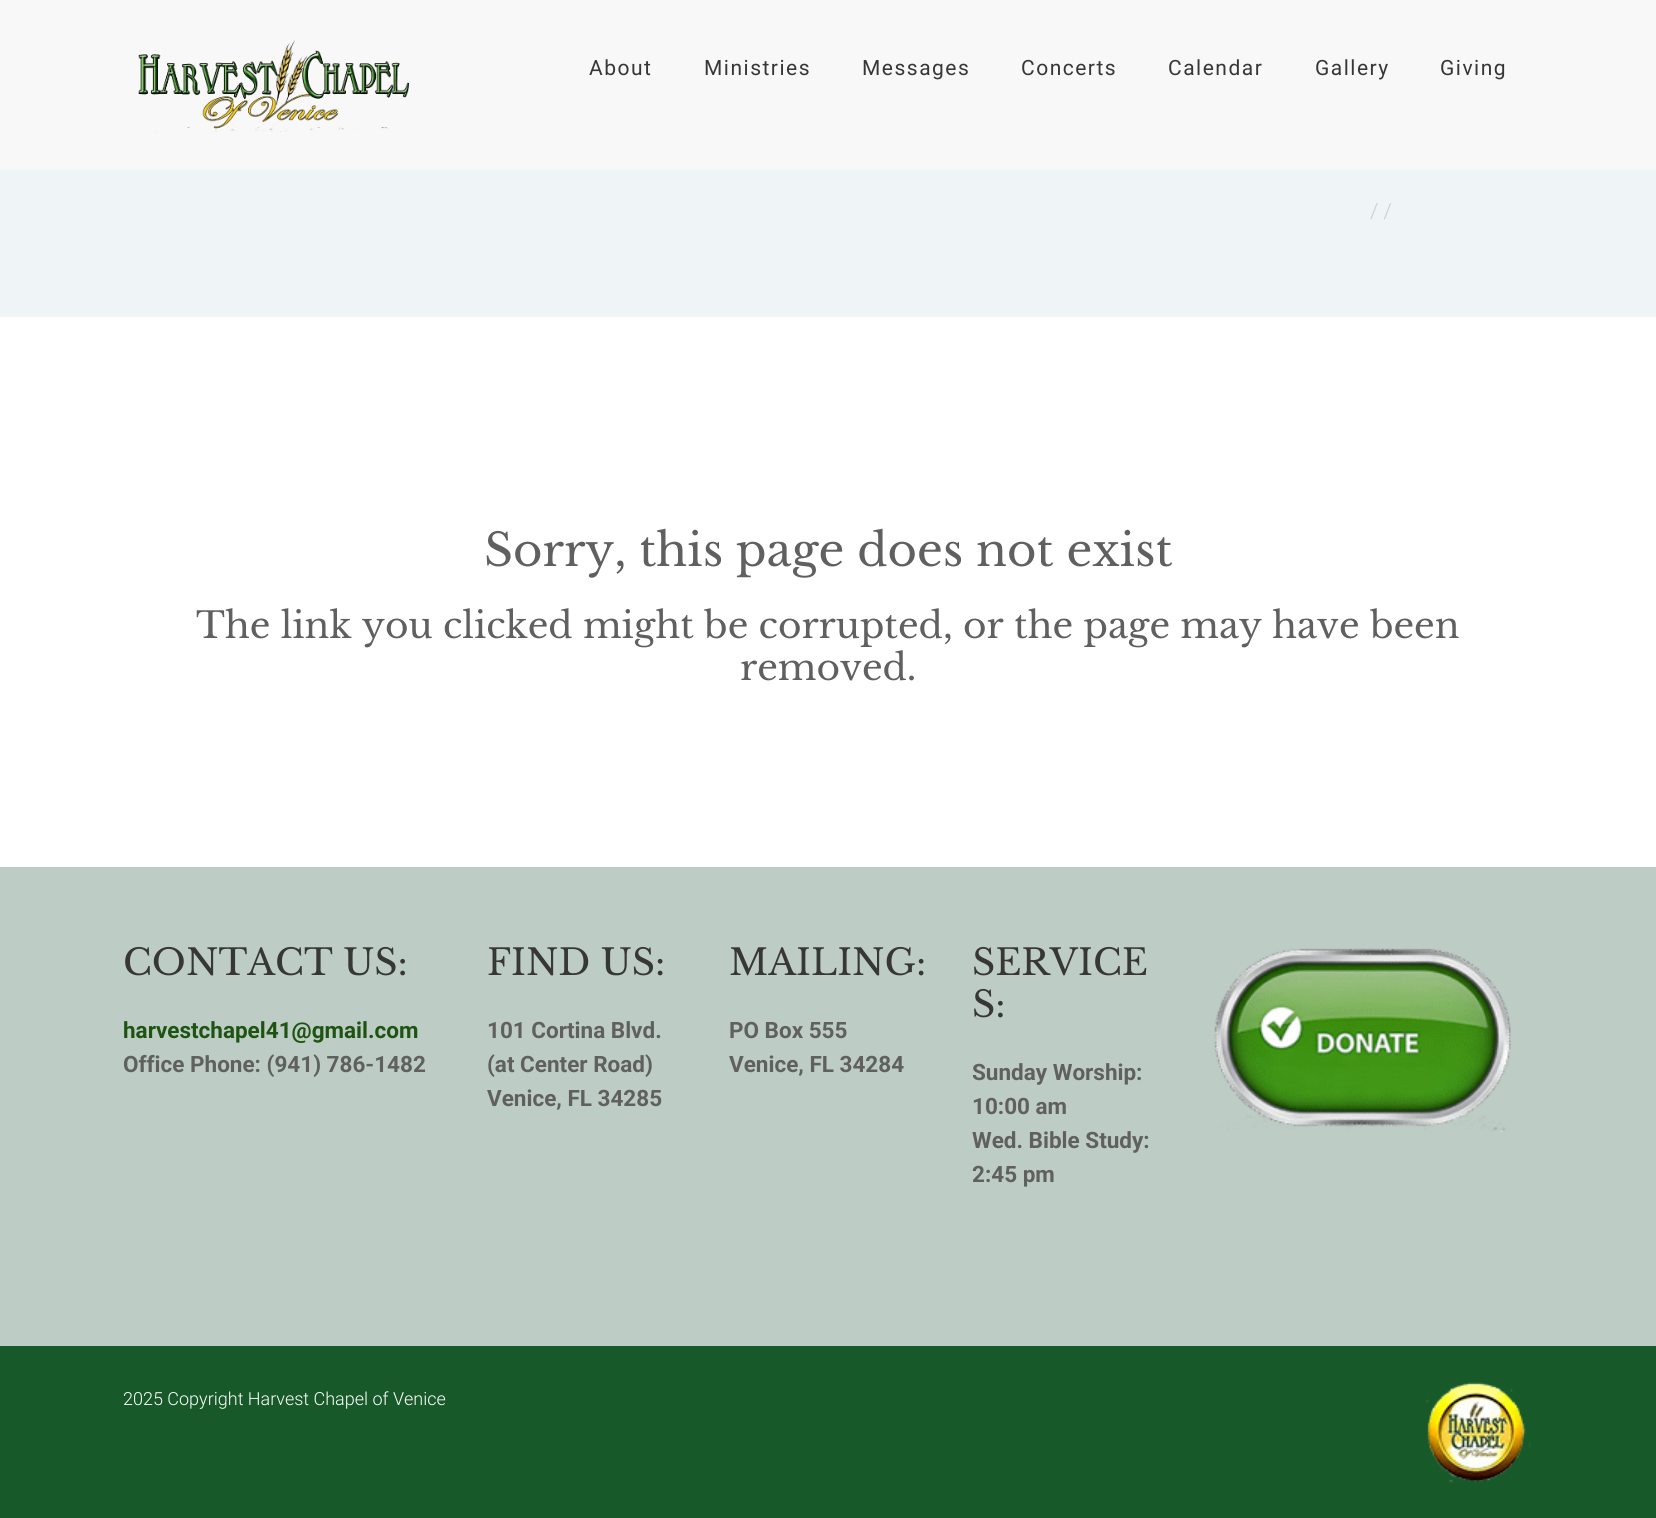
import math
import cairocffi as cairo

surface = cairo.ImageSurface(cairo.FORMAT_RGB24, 1656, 1518)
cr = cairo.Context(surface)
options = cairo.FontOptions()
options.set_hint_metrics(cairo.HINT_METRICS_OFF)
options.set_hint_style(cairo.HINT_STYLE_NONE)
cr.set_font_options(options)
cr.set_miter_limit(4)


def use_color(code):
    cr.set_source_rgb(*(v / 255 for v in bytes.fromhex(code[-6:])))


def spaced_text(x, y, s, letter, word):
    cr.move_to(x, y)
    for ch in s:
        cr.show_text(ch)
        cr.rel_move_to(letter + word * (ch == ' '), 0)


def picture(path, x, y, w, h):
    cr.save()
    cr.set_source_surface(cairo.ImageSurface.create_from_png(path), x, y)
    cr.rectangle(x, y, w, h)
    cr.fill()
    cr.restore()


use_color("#ffffff")
cr.paint()
use_color("#f8f8f8")
cr.rectangle(0, 0, 1656, 170)
cr.fill()
picture("img1.png", 138, 40, 271, 92)
cr.select_font_face("Roboto")
cr.set_font_size(21)
use_color("#383737")
spaced_text(589, 75, "About", 1.5, 0)
spaced_text(704, 75, "Ministries", 1.5, 0)
spaced_text(862, 75, "Messages", 1.5, 0)
spaced_text(1021, 75, "Concerts", 1.5, 0)
spaced_text(1168, 75, "Calendar", 1.5, 0)
spaced_text(1315, 75, "Gallery", 1.5, 0)
spaced_text(1440, 75, "Giving", 1.5, 0)
use_color("#eff4f7")
cr.rectangle(0, 170, 1656, 147)
cr.fill()
cr.select_font_face("Roboto Light")
use_color("#cccccc")
cr.move_to(1370, 218)
cr.show_text("/ /")
cr.select_font_face("Libre Baskerville")
cr.set_font_size(45)
use_color("#606060")
cr.move_to(484, 566)
cr.show_text("Sorry, this page does not exist")
cr.set_font_size(36)
cr.move_to(196, 638)
cr.show_text("The link you clicked might be corrupted, or the page may have been")
cr.move_to(740, 680)
cr.show_text("removed.")
use_color("#bdccc5")
cr.rectangle(0, 867, 1656, 479)
cr.fill()
use_color("#383737")
cr.move_to(123, 975)
cr.show_text("CONTACT US:")
cr.select_font_face("Roboto", cairo.FONT_SLANT_NORMAL, cairo.FONT_WEIGHT_BOLD)
cr.set_font_size(22.5)
use_color("#1d5412")
cr.move_to(123, 1038)
cr.show_text("harvestchapel41@gmail.com")
use_color("#606060")
cr.move_to(123, 1072)
cr.show_text("Office Phone: (941) 786-1482")
cr.select_font_face("Libre Baskerville")
cr.set_font_size(36)
use_color("#383737")
cr.move_to(487, 975)
cr.show_text("FIND US:")
cr.select_font_face("Roboto", cairo.FONT_SLANT_NORMAL, cairo.FONT_WEIGHT_BOLD)
cr.set_font_size(22.5)
use_color("#606060")
cr.move_to(487, 1038)
cr.show_text("101 Cortina Blvd.")
cr.move_to(487, 1072)
cr.show_text("(at Center Road)")
cr.move_to(487, 1106)
cr.show_text("Venice, FL 34285")
cr.select_font_face("Libre Baskerville")
cr.set_font_size(36)
use_color("#383737")
cr.move_to(729, 975)
cr.show_text("MAILING:")
cr.select_font_face("Roboto", cairo.FONT_SLANT_NORMAL, cairo.FONT_WEIGHT_BOLD)
cr.set_font_size(22.5)
use_color("#606060")
cr.move_to(729, 1038)
cr.show_text("PO Box 555")
cr.move_to(729, 1072)
cr.show_text("Venice, FL 34284")
cr.select_font_face("Libre Baskerville")
cr.set_font_size(36)
use_color("#383737")
cr.move_to(972, 975)
cr.show_text("SERVICE")
cr.move_to(972, 1017)
cr.show_text("S:")
cr.select_font_face("Roboto", cairo.FONT_SLANT_NORMAL, cairo.FONT_WEIGHT_BOLD)
cr.set_font_size(22.5)
use_color("#606060")
cr.move_to(972, 1080)
cr.show_text("Sunday Worship:")
cr.move_to(972, 1114)
cr.show_text("10:00 am")
cr.move_to(972, 1148)
cr.show_text("Wed. Bible Study:")
cr.move_to(972, 1182)
cr.show_text("2:45 pm")
picture("img2.png", 1214, 948, 297, 184)
use_color("#175929")
cr.rectangle(0, 1346, 1656, 172)
cr.fill()
cr.select_font_face("Roboto Light")
cr.set_font_size(18)
use_color("#ffffff")
cr.move_to(123, 1405)
cr.show_text("2025 Copyright Harvest Chapel of Venice")
picture("img3.png", 1426, 1382, 105, 101)
surface.write_to_png("result.png")
